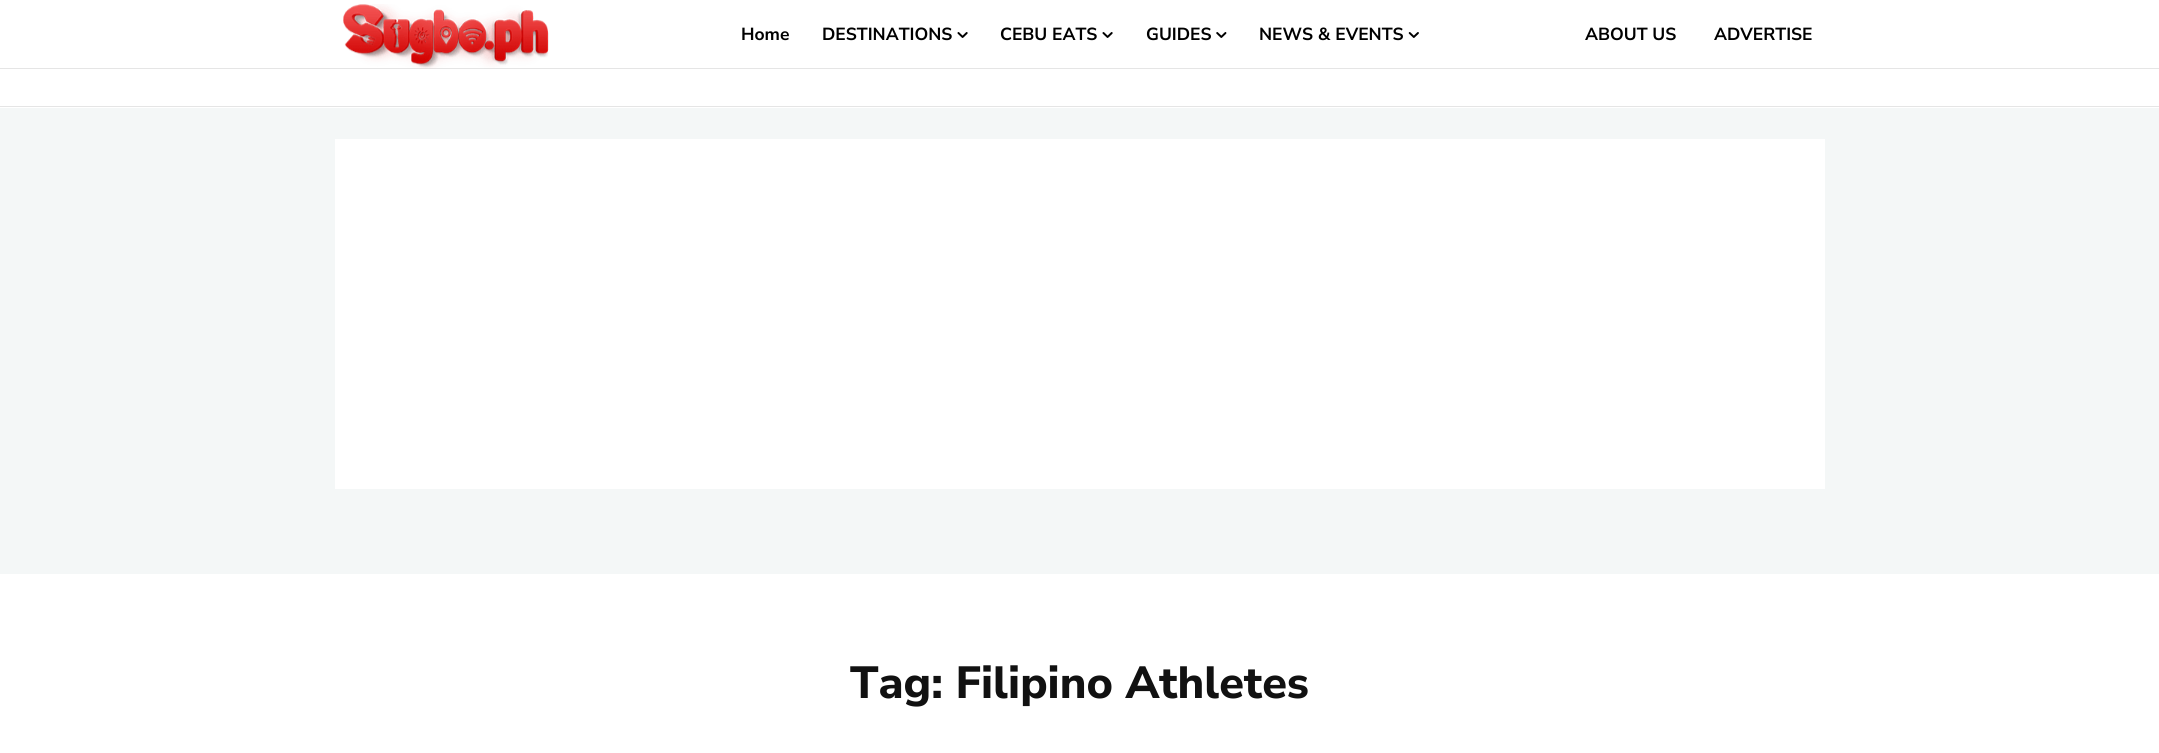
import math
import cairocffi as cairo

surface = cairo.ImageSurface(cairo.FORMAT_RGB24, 2159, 753)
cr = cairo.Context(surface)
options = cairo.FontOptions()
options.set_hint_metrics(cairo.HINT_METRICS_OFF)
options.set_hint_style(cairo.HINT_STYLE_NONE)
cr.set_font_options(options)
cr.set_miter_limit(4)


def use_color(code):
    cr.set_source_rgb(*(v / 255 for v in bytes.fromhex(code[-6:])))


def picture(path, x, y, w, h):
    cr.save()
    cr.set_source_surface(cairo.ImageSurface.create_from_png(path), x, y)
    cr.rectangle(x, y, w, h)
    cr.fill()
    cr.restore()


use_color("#ffffff")
cr.paint()
use_color("#e5e5e5")
cr.rectangle(0, 68, 2159, 1)
cr.fill()
picture("img1.png", 343, 4, 206, 65)
cr.select_font_face("Nunito Sans", cairo.FONT_SLANT_NORMAL, cairo.FONT_WEIGHT_BOLD)
cr.set_font_size(17.5)
use_color("#000000")
cr.move_to(741, 40)
cr.show_text("Home")
cr.move_to(822, 40)
cr.show_text("DESTINATIONS")
picture("img2.png", 957, 32, 11, 6)
cr.move_to(1000, 40)
cr.show_text("CEBU EATS")
picture("img2.png", 1102, 32, 11, 6)
cr.move_to(1146, 40)
cr.show_text("GUIDES")
picture("img3.png", 1216, 32, 11, 6)
cr.move_to(1259, 40)
cr.show_text("NEWS & EVENTS")
picture("img4.png", 1408, 32, 11, 6)
cr.move_to(1585, 40)
cr.show_text("ABOUT US")
cr.move_to(1714, 40)
cr.show_text("ADVERTISE")
use_color("#e5e5e5")
cr.rectangle(0, 106, 2159, 1)
cr.fill()
use_color("#f4f7f7")
cr.rectangle(0, 108, 2159, 466)
cr.fill()
use_color("#ffffff")
cr.rectangle(335, 139, 1490, 350)
cr.fill()
cr.select_font_face("Nunito Sans ExtraBold")
cr.set_font_size(45)
use_color("#111111")
cr.move_to(850, 698)
cr.show_text("Tag: Filipino Athletes")
surface.write_to_png("result.png")
